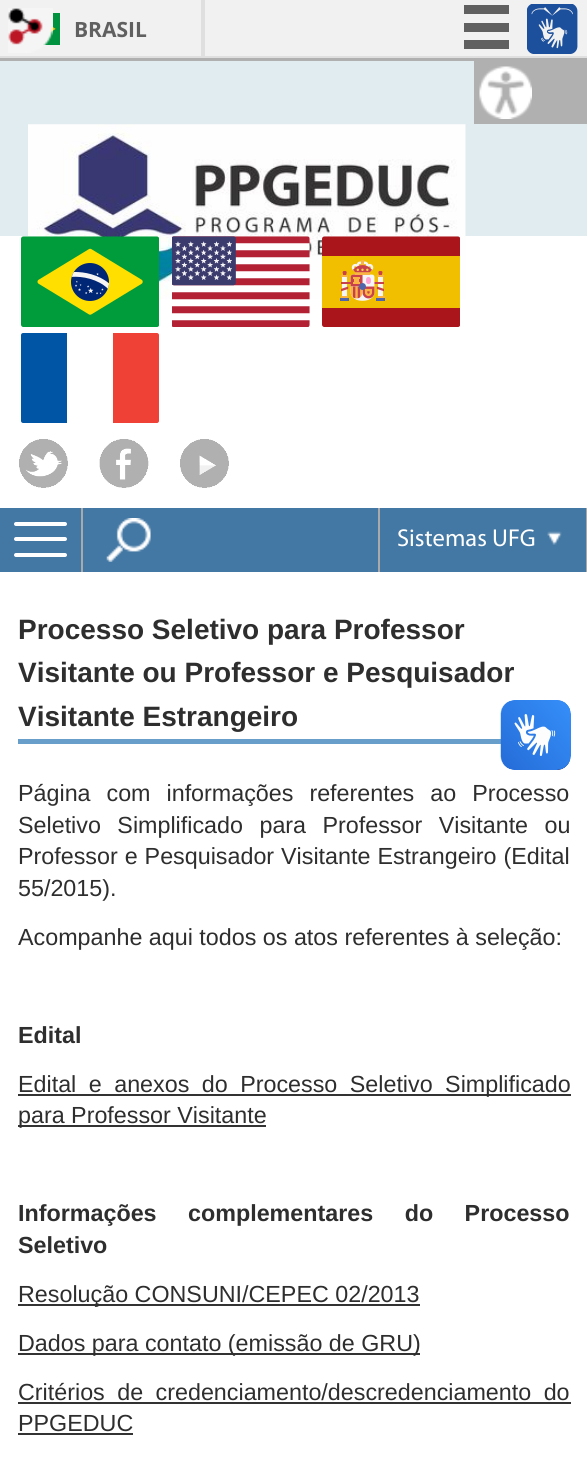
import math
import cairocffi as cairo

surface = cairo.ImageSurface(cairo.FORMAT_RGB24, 587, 1468)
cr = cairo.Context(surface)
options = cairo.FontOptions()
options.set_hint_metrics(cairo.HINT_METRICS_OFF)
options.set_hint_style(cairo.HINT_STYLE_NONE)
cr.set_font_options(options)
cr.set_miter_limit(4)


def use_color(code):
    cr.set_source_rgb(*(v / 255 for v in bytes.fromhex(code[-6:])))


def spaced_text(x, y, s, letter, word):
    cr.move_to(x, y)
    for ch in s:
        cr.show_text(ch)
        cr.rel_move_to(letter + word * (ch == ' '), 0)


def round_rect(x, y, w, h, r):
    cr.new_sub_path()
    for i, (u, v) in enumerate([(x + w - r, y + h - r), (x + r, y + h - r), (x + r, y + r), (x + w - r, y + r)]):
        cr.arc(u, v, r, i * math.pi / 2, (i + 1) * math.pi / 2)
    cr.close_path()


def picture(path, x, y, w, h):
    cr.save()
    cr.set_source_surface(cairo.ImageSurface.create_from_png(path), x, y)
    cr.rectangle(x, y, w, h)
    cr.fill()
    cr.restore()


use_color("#ffffff")
cr.paint()
use_color("#f1f1f1")
cr.rectangle(0, 0, 587, 56)
cr.fill()
picture("img2.png", 43, 13, 17, 32)
picture("img1.png", 8, 8, 45, 45)
use_color("#dfdfdf")
cr.rectangle(0, 56, 587, 2)
cr.fill()
cr.rectangle(201, 0, 4, 56)
cr.fill()
cr.select_font_face("Open Sans", cairo.FONT_SLANT_NORMAL, cairo.FONT_WEIGHT_BOLD)
cr.set_font_size(21)
use_color("#606060")
cr.move_to(74, 37)
cr.show_text("BRASIL")
cr.rectangle(464, 5, 45, 9)
cr.fill()
cr.rectangle(464, 23, 45, 9)
cr.fill()
cr.rectangle(464, 40, 45, 9)
cr.fill()
picture("img3.png", 527, 4, 51, 50)
use_color("#b0b0b0")
cr.rectangle(0, 58, 587, 3)
cr.fill()
use_color("#e1ecf1")
cr.rectangle(0, 61, 587, 175)
cr.fill()
use_color("#b0b0b0")
cr.rectangle(474, 61, 113, 63)
cr.fill()
picture("img4.png", 479, 66, 53, 53)
picture("img5.png", 28, 124, 438, 176)
picture("img6.png", 21, 236, 138, 91)
picture("img7.png", 172, 236, 138, 91)
picture("img8.png", 322, 236, 138, 91)
use_color("#0055a4")
cr.new_path()
cr.move_to(67, 423)
cr.line_to(23, 423)
cr.curve_to(22, 423, 21, 422, 21, 421)
cr.line_to(21, 335)
cr.curve_to(21, 334, 22, 333, 23, 333)
cr.line_to(67, 333)
cr.close_path()
cr.fill()
use_color("#ef4135")
cr.new_path()
cr.move_to(157, 423)
cr.line_to(113, 423)
cr.line_to(113, 333)
cr.line_to(157, 333)
cr.curve_to(158, 333, 159, 334, 159, 335)
cr.line_to(159, 421)
cr.curve_to(159, 422, 158, 423, 157, 423)
cr.close_path()
cr.fill()
picture("img9.png", 19, 439, 49, 49)
picture("img10.png", 99, 439, 50, 49)
picture("img11.png", 180, 439, 49, 49)
use_color("#4478a4")
cr.rectangle(0, 508, 586, 64)
cr.fill()
use_color("#aaaaaa")
cr.rectangle(81, 508, 2, 64)
cr.fill()
use_color("#ffffff")
round_rect(14, 537, 53, 4, 2)
cr.fill()
round_rect(14, 522, 53, 4, 2)
cr.fill()
round_rect(14, 553, 53, 4, 2)
cr.fill()
picture("img12.png", 106, 518, 45, 44)
picture("img13.png", 547, 531, 15, 14)
use_color("#aaaaaa")
cr.rectangle(586, 508, 1, 64)
cr.fill()
cr.rectangle(378, 508, 2, 64)
cr.fill()
cr.select_font_face("Myriad")
cr.set_font_size(24.5)
use_color("#ffffff")
cr.move_to(397, 546)
cr.show_text("Sistemas UFG")
use_color("#689eca")
cr.rectangle(18, 739, 483, 5)
cr.fill()
cr.select_font_face("Liberation Sans", cairo.FONT_SLANT_NORMAL, cairo.FONT_WEIGHT_BOLD)
cr.set_font_size(28)
use_color("#2e2e2e")
cr.move_to(18, 639)
cr.show_text("Processo Seletivo para Professor")
cr.move_to(18, 682)
cr.show_text("Visitante ou Professor e Pesquisador")
cr.move_to(18, 726)
cr.show_text("Visitante Estrangeiro")
cr.select_font_face("Liberation Sans")
cr.set_font_size(23.3)
spaced_text(18, 801, "Página com informações referentes ao Processo", 0, 9.5)
spaced_text(18, 833, "Seletivo Simplificado para Professor Visitante ou", 0, 10)
spaced_text(18, 864, "Professor e Pesquisador Visitante Estrangeiro (Edital", 0, 0.5)
cr.move_to(18, 896)
cr.show_text("55/2015).")
cr.move_to(18, 945)
cr.show_text("Acompanhe aqui todos os atos referentes à seleção:")
cr.select_font_face("Liberation Sans", cairo.FONT_SLANT_NORMAL, cairo.FONT_WEIGHT_BOLD)
cr.move_to(18, 1043)
cr.show_text("Edital")
use_color("#333333")
cr.rectangle(18, 1094, 553, 2)
cr.fill()
cr.select_font_face("Liberation Sans")
use_color("#2e2e2e")
spaced_text(18, 1092, "Edital e anexos do Processo Seletivo Simplificado", 0, 6)
use_color("#333333")
cr.rectangle(18, 1125, 248, 2)
cr.fill()
use_color("#2e2e2e")
cr.move_to(18, 1123)
cr.show_text("para Professor Visitante")
cr.select_font_face("Liberation Sans", cairo.FONT_SLANT_NORMAL, cairo.FONT_WEIGHT_BOLD)
spaced_text(18, 1221, "Informações complementares do Processo", 0, 25)
cr.move_to(18, 1253)
cr.show_text("Seletivo")
use_color("#333333")
cr.rectangle(18, 1304, 402, 2)
cr.fill()
cr.select_font_face("Liberation Sans")
use_color("#2e2e2e")
cr.move_to(18, 1302)
cr.show_text("Resolução CONSUNI/CEPEC 02/2013")
use_color("#333333")
cr.rectangle(18, 1353, 402, 2)
cr.fill()
use_color("#2e2e2e")
cr.move_to(18, 1351)
cr.show_text("Dados para contato (emissão de GRU)")
spaced_text(18, 1400, "Critérios de credenciamento/descredenciamento do", 0, 6)
use_color("#333333")
cr.rectangle(18, 1402, 553, 2)
cr.fill()
use_color("#2e2e2e")
cr.move_to(18, 1431)
cr.show_text("PPGEDUC")
use_color("#333333")
cr.rectangle(18, 1433, 115, 2)
cr.fill()
picture("img14.png", 500, 700, 71, 70)
picture("img15.png", 501, 700, 70, 70)
surface.write_to_png("result.png")
